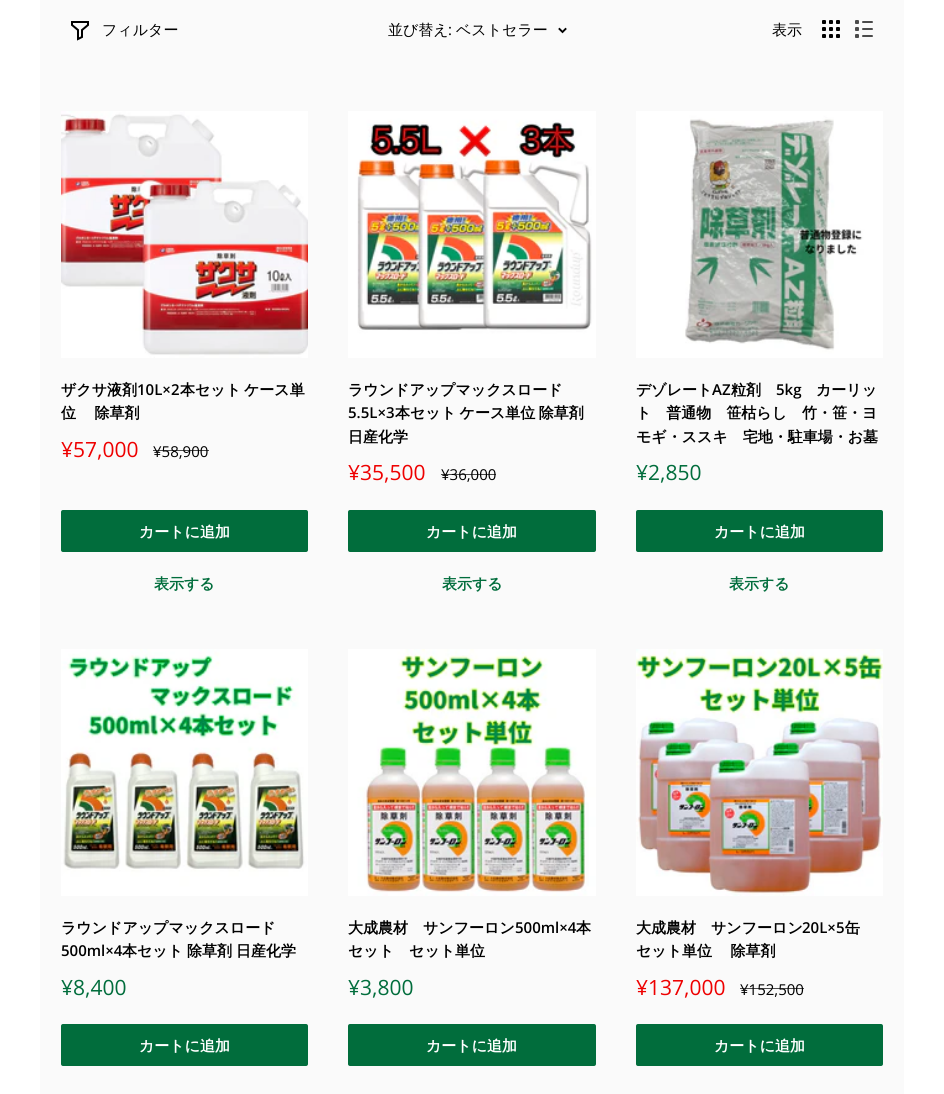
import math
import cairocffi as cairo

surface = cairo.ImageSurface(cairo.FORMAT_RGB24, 944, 1094)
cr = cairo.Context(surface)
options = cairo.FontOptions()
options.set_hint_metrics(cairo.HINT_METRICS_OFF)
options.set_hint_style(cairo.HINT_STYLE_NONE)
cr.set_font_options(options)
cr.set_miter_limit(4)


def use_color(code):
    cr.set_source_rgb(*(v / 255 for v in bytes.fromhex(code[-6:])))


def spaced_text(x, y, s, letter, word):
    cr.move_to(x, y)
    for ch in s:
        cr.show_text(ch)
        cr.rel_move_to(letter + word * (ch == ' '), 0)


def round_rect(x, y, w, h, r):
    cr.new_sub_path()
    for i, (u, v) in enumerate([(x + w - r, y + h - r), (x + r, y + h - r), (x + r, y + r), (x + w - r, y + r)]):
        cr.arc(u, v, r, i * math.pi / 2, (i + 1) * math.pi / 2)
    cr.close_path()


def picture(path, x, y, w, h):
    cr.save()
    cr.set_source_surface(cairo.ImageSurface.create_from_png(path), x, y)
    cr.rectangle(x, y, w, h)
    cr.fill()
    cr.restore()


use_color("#ffffff")
cr.paint()
use_color("#fafafa")
cr.rectangle(40, 0, 864, 1094)
cr.fill()
cr.new_path()
cr.move_to(88, 25)
cr.line_to(82, 30)
cr.line_to(82, 37)
cr.line_to(78, 39)
cr.line_to(78, 30)
cr.line_to(72, 25)
cr.line_to(72, 22)
cr.line_to(88, 22)
cr.close_path()
use_color("#000000")
cr.set_line_cap(cairo.LINE_CAP_SQUARE)
cr.stroke()
cr.select_font_face("WenQuanYi Zen Hei Medium")
cr.set_font_size(15)
cr.move_to(102, 35)
cr.show_text("フィルター")
cr.move_to(388, 35)
cr.show_text("並び替え")
cr.select_font_face("Open Sans")
cr.move_to(448, 35)
cr.show_text(":")
cr.select_font_face("WenQuanYi Zen Hei Medium")
cr.move_to(456, 35)
cr.show_text("ベストセラー")
cr.new_path()
cr.move_to(565.5, 29)
cr.line_to(562.5, 32)
cr.line_to(559.5, 29)
cr.set_line_width(1.9)
cr.stroke()
cr.move_to(772, 35)
cr.show_text("表示")
picture("img1.png", 822, 20, 18, 18)
picture("img2.png", 855, 20, 18, 18)
picture("img3.png", 61, 111, 247, 247)
cr.select_font_face("WenQuanYi Zen Hei", cairo.FONT_SLANT_NORMAL, cairo.FONT_WEIGHT_BOLD)
cr.move_to(61, 395)
cr.show_text("ザクサ液剤")
cr.select_font_face("Open Sans SemiBold")
cr.move_to(137, 395)
cr.show_text("10L×2")
cr.select_font_face("WenQuanYi Zen Hei", cairo.FONT_SLANT_NORMAL, cairo.FONT_WEIGHT_BOLD)
cr.move_to(180, 395)
cr.show_text("本セット")
cr.move_to(244, 395)
cr.show_text("ケース単")
spaced_text(61, 418, "位　 除草剤", 0, -1)
cr.select_font_face("Open Sans")
cr.set_font_size(21)
use_color("#ee0000")
cr.move_to(61, 457)
cr.show_text("¥57,000")
cr.set_font_size(15)
use_color("#000000")
cr.move_to(153, 457)
cr.show_text("¥58,900")
cr.set_source_rgba(0, 0, 0, 0.7)
cr.rectangle(153, 450, 56, 1)
cr.fill()
use_color("#016d3c")
round_rect(61, 510, 247, 42, 2)
cr.fill()
cr.select_font_face("WenQuanYi Zen Hei", cairo.FONT_SLANT_NORMAL, cairo.FONT_WEIGHT_BOLD)
use_color("#ffffff")
cr.move_to(139, 537)
cr.show_text("カートに追加")
use_color("#016d3c")
cr.move_to(154, 589)
cr.show_text("表示する")
picture("img4.png", 348, 111, 248, 247)
use_color("#000000")
cr.move_to(348, 395)
cr.show_text("ラウンドアップマックスロード")
cr.select_font_face("Open Sans SemiBold")
cr.move_to(348, 418)
cr.show_text("5.5L×3")
cr.select_font_face("WenQuanYi Zen Hei", cairo.FONT_SLANT_NORMAL, cairo.FONT_WEIGHT_BOLD)
spaced_text(395, 418, "本セット ケース単位 除草剤", 0, -1)
cr.move_to(348, 442)
cr.show_text("日産化学")
cr.select_font_face("Open Sans")
cr.set_font_size(21)
use_color("#ee0000")
cr.move_to(348, 480)
cr.show_text("¥35,500")
cr.set_font_size(15)
use_color("#000000")
cr.move_to(441, 480)
cr.show_text("¥36,000")
cr.set_source_rgba(0, 0, 0, 0.7)
cr.rectangle(441, 474, 55, 1)
cr.fill()
use_color("#016d3c")
round_rect(348, 510, 248, 42, 2)
cr.fill()
cr.select_font_face("WenQuanYi Zen Hei", cairo.FONT_SLANT_NORMAL, cairo.FONT_WEIGHT_BOLD)
use_color("#ffffff")
cr.move_to(426, 537)
cr.show_text("カートに追加")
use_color("#016d3c")
cr.move_to(442, 589)
cr.show_text("表示する")
picture("img5.png", 636, 111, 247, 247)
use_color("#000000")
cr.move_to(636, 395)
cr.show_text("デゾレート")
cr.select_font_face("Open Sans SemiBold")
cr.move_to(712, 395)
cr.show_text("AZ")
cr.select_font_face("WenQuanYi Zen Hei", cairo.FONT_SLANT_NORMAL, cairo.FONT_WEIGHT_BOLD)
cr.move_to(731, 395)
cr.show_text("粒剤")
cr.select_font_face("Open Sans SemiBold")
cr.move_to(776, 395)
cr.show_text("5kg")
cr.select_font_face("WenQuanYi Zen Hei", cairo.FONT_SLANT_NORMAL, cairo.FONT_WEIGHT_BOLD)
cr.move_to(816, 395)
cr.show_text("カーリッ")
cr.move_to(636, 418)
cr.show_text("ト　普通物　笹枯らし　竹・笹・ヨ")
cr.move_to(636, 442)
cr.show_text("モギ・ススキ　宅地・駐車場・お墓")
cr.select_font_face("Open Sans")
cr.set_font_size(21)
use_color("#016d3c")
cr.move_to(636, 480)
cr.show_text("¥2,850")
round_rect(636, 510, 247, 42, 2)
cr.fill()
cr.select_font_face("WenQuanYi Zen Hei", cairo.FONT_SLANT_NORMAL, cairo.FONT_WEIGHT_BOLD)
cr.set_font_size(15)
use_color("#ffffff")
cr.move_to(714, 537)
cr.show_text("カートに追加")
use_color("#016d3c")
cr.move_to(729, 589)
cr.show_text("表示する")
picture("img6.png", 61, 649, 247, 247)
use_color("#000000")
cr.move_to(61, 933)
cr.show_text("ラウンドアップマックスロード")
cr.select_font_face("Open Sans SemiBold")
cr.move_to(61, 956)
cr.show_text("500ml×4")
cr.select_font_face("WenQuanYi Zen Hei", cairo.FONT_SLANT_NORMAL, cairo.FONT_WEIGHT_BOLD)
cr.move_to(122, 956)
cr.show_text("本セット")
cr.move_to(187, 956)
cr.show_text("除草剤")
cr.move_to(236, 956)
cr.show_text("日産化学")
cr.select_font_face("Open Sans")
cr.set_font_size(21)
use_color("#016d3c")
cr.move_to(61, 995)
cr.show_text("¥8,400")
round_rect(61, 1024, 247, 42, 2)
cr.fill()
cr.select_font_face("WenQuanYi Zen Hei", cairo.FONT_SLANT_NORMAL, cairo.FONT_WEIGHT_BOLD)
cr.set_font_size(15)
use_color("#ffffff")
cr.move_to(139, 1051)
cr.show_text("カートに追加")
picture("img7.png", 348, 649, 248, 247)
use_color("#000000")
cr.move_to(348, 933)
cr.show_text("大成農材　サンフーロン")
cr.select_font_face("Open Sans SemiBold")
cr.move_to(515, 933)
cr.show_text("500ml×4")
cr.select_font_face("WenQuanYi Zen Hei", cairo.FONT_SLANT_NORMAL, cairo.FONT_WEIGHT_BOLD)
cr.move_to(576, 933)
cr.show_text("本")
cr.move_to(348, 956)
cr.show_text("セット　セット単位")
cr.select_font_face("Open Sans")
cr.set_font_size(21)
use_color("#016d3c")
cr.move_to(348, 995)
cr.show_text("¥3,800")
round_rect(348, 1024, 248, 42, 2)
cr.fill()
cr.select_font_face("WenQuanYi Zen Hei", cairo.FONT_SLANT_NORMAL, cairo.FONT_WEIGHT_BOLD)
cr.set_font_size(15)
use_color("#ffffff")
cr.move_to(426, 1051)
cr.show_text("カートに追加")
picture("img8.png", 636, 649, 247, 247)
use_color("#000000")
cr.move_to(636, 933)
cr.show_text("大成農材　サンフーロン")
cr.select_font_face("Open Sans SemiBold")
cr.move_to(802, 933)
cr.show_text("20L×5")
cr.select_font_face("WenQuanYi Zen Hei", cairo.FONT_SLANT_NORMAL, cairo.FONT_WEIGHT_BOLD)
cr.move_to(845, 933)
cr.show_text("缶")
spaced_text(636, 956, "セット単位　 除草剤", 0, -1)
cr.select_font_face("Open Sans")
cr.set_font_size(21)
use_color("#ee0000")
cr.move_to(636, 995)
cr.show_text("¥137,000")
cr.set_font_size(15)
use_color("#000000")
cr.move_to(740, 995)
cr.show_text("¥152,500")
cr.set_source_rgba(0, 0, 0, 0.7)
cr.rectangle(740, 988, 64, 1)
cr.fill()
use_color("#016d3c")
round_rect(636, 1024, 247, 42, 2)
cr.fill()
cr.select_font_face("WenQuanYi Zen Hei", cairo.FONT_SLANT_NORMAL, cairo.FONT_WEIGHT_BOLD)
use_color("#ffffff")
cr.move_to(714, 1051)
cr.show_text("カートに追加")
surface.write_to_png("result.png")
